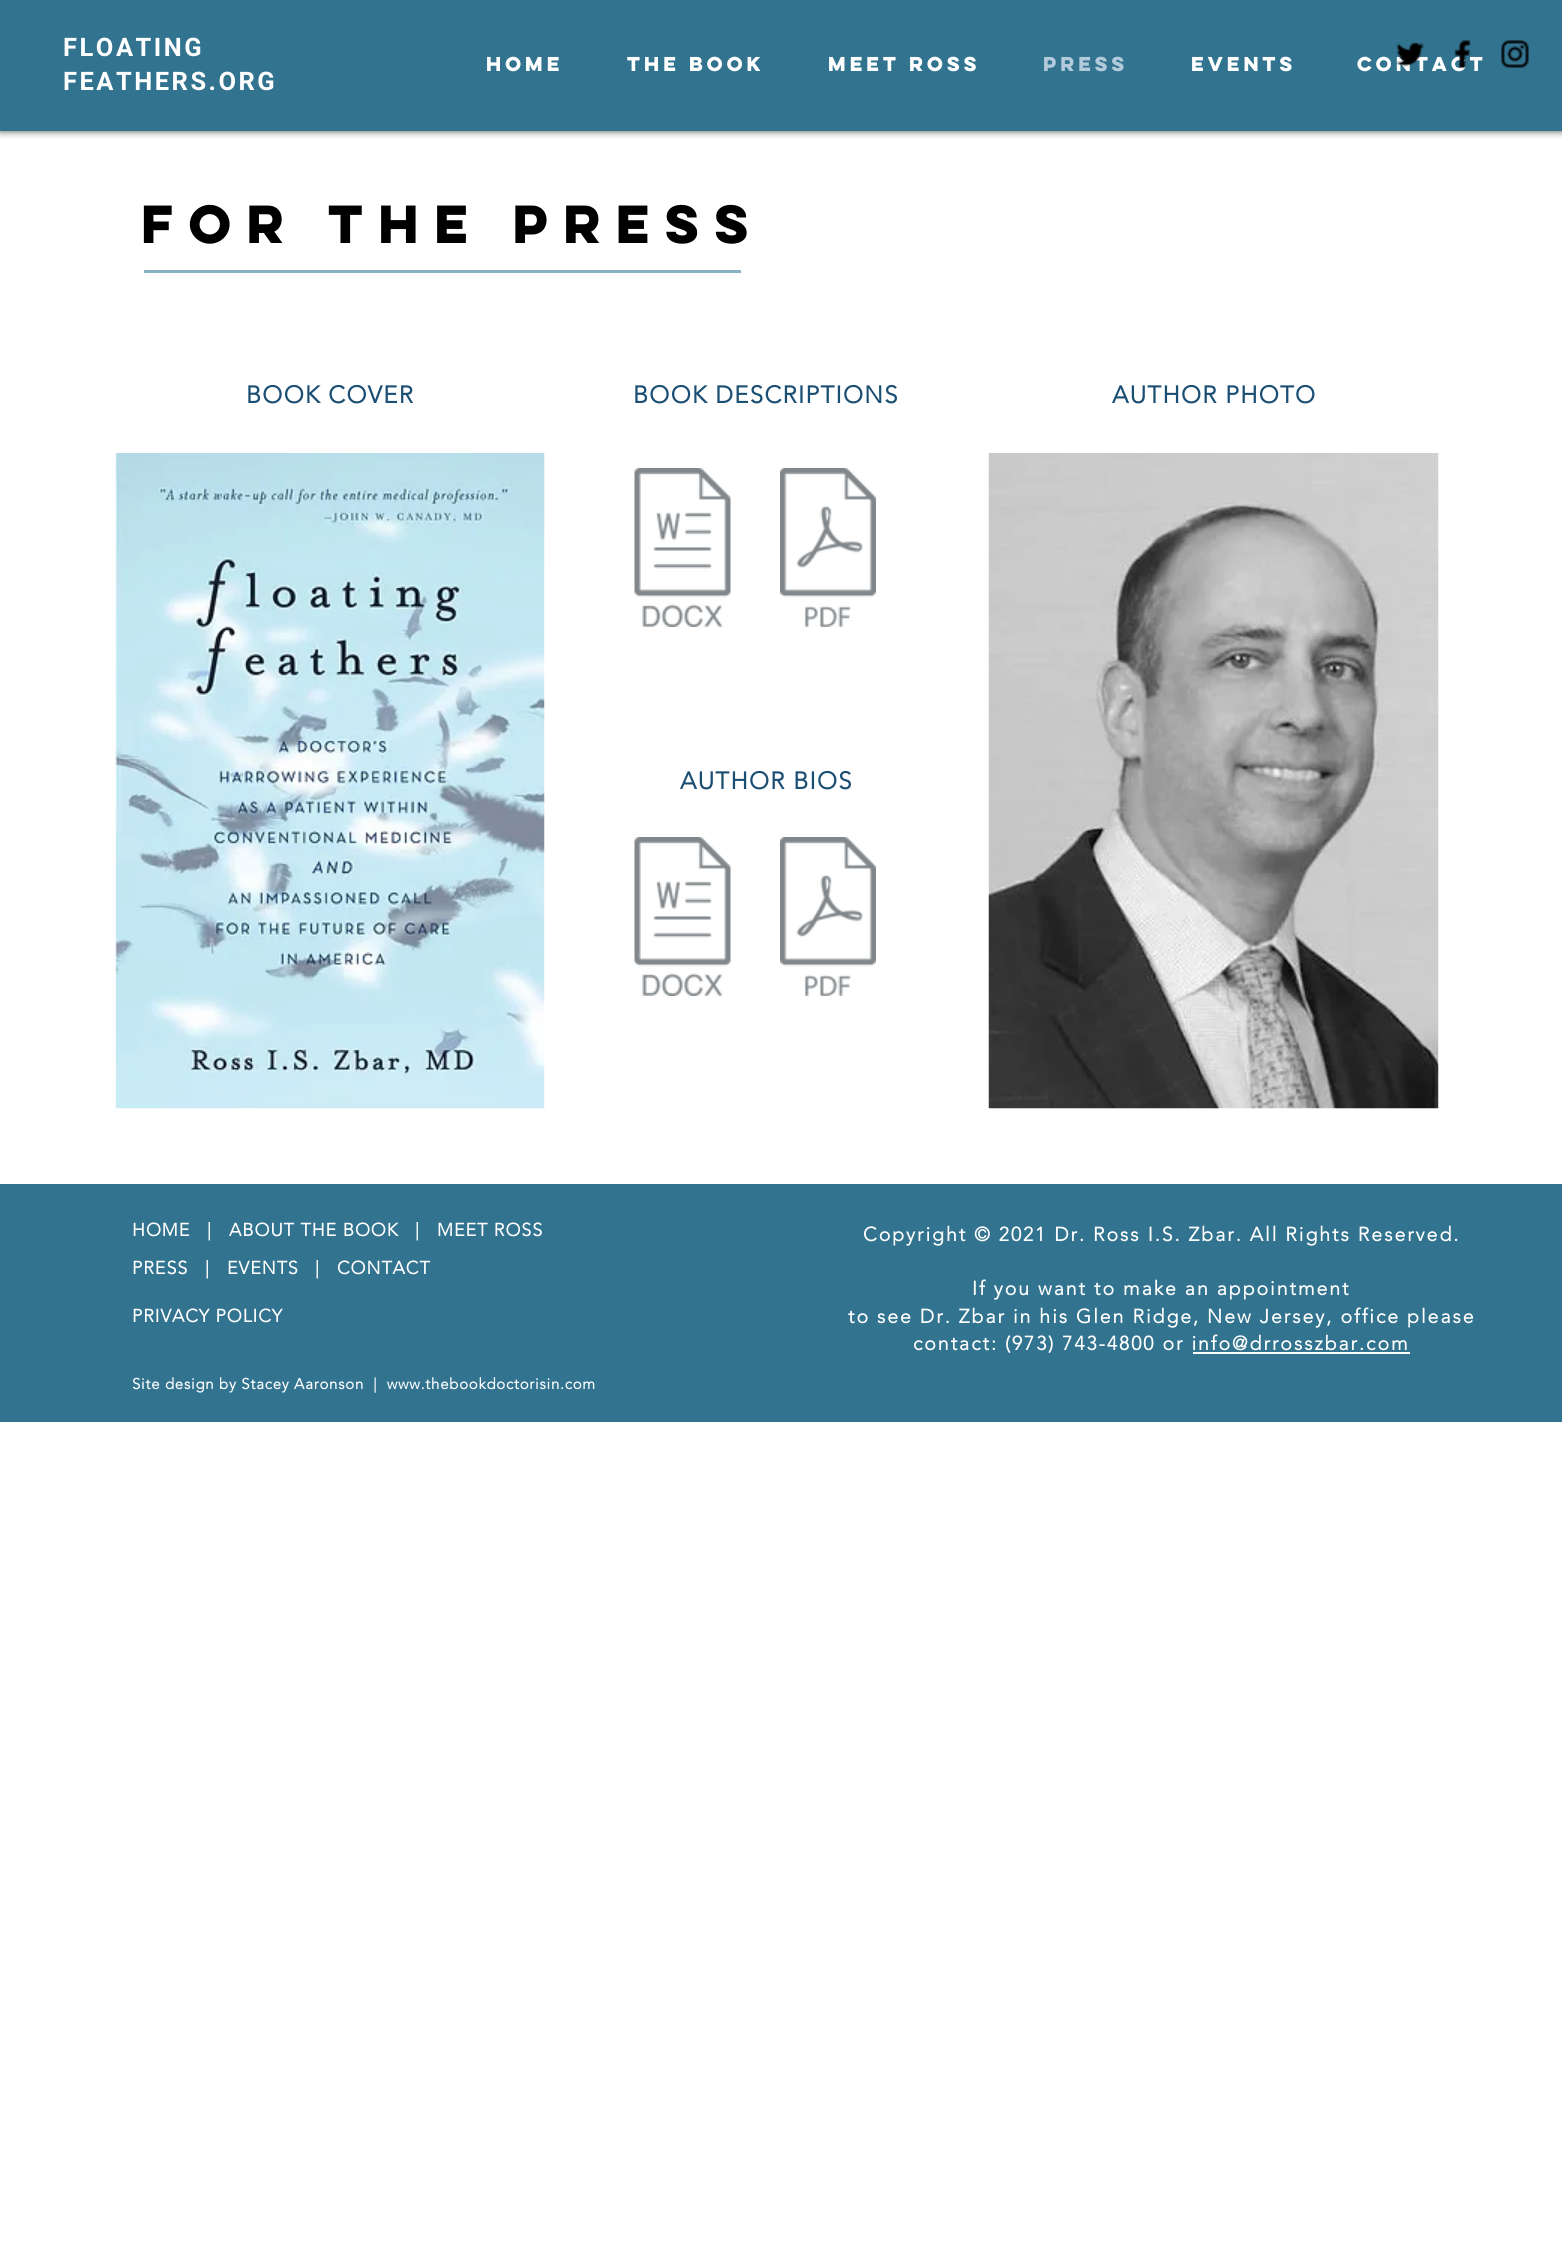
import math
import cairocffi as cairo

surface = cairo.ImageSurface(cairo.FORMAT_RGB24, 1562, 2251)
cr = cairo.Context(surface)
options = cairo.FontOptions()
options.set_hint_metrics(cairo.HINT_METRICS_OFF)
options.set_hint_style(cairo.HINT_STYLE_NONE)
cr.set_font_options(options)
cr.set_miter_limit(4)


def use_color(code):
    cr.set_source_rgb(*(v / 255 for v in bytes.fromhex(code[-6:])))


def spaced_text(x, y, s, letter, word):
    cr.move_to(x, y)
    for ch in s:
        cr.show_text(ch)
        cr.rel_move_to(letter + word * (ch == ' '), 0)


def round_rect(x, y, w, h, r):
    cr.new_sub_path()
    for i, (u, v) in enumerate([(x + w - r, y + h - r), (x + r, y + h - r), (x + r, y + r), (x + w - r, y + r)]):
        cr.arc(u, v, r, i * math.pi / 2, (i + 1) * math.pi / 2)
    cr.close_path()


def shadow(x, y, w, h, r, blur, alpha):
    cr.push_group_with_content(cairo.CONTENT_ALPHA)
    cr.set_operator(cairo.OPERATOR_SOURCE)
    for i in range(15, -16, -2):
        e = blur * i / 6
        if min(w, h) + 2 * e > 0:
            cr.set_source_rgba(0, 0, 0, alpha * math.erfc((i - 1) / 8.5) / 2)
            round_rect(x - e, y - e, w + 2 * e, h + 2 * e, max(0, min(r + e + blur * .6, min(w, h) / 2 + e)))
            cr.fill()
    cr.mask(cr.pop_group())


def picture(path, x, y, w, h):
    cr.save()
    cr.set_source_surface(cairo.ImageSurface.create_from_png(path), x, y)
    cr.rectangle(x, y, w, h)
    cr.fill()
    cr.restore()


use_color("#ffffff")
cr.paint()
use_color("#000000")
shadow(0, 0, 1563, 131, 0, 4, 0.7)
use_color("#32738f")
cr.rectangle(0, 0, 1562, 131)
cr.fill()
cr.select_font_face("Roboto", cairo.FONT_SLANT_NORMAL, cairo.FONT_WEIGHT_BOLD)
cr.set_font_size(25.5)
use_color("#ffffff")
spaced_text(63, 56, "FLOATING", 2.5, 0)
spaced_text(63, 90, "FEATHERS.ORG", 2.5, 0)
cr.select_font_face("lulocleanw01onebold", cairo.FONT_SLANT_NORMAL, cairo.FONT_WEIGHT_BOLD)
cr.set_font_size(18)
cr.move_to(486, 71)
cr.show_text("Home")
cr.move_to(627, 71)
cr.show_text("The Book")
cr.move_to(828, 71)
cr.show_text("Meet Ross")
use_color("#b2cadc")
cr.move_to(1043, 71)
cr.show_text("Press")
use_color("#ffffff")
cr.move_to(1191, 71)
cr.show_text("Events")
cr.move_to(1357, 71)
cr.show_text("Contact")
picture("img1.png", 1396, 42, 28, 25)
picture("img2.png", 1454, 40, 17, 29)
picture("img3.png", 1501, 40, 28, 28)
cr.set_font_size(48)
use_color("#000000")
spaced_text(141, 243, "for the press", 4.75, 0)
use_color("#87b2c4")
cr.rectangle(144, 270, 597, 3)
cr.fill()
cr.select_font_face("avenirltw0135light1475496", cairo.FONT_SLANT_NORMAL, cairo.FONT_WEIGHT_BOLD)
cr.set_font_size(24)
use_color("#1b4e73")
spaced_text(246, 403, "BOOK COVER", 1.25, 0)
spaced_text(633, 403, "BOOK DESCRIPTIONS", 1.25, 0)
spaced_text(1112, 403, "AUTHOR PHOTO", 1.25, 0)
picture("img4.png", 115, 453, 430, 656)
picture("img5.png", 634, 468, 97, 159)
picture("img6.png", 780, 468, 96, 159)
picture("img7.png", 988, 453, 451, 656)
spaced_text(680, 789, "AUTHOR BIOS", 1.25, 0)
picture("img5.png", 634, 837, 97, 159)
picture("img6.png", 780, 837, 96, 159)
use_color("#32738f")
cr.rectangle(0, 1184, 1562, 238)
cr.fill()
cr.set_font_size(18)
use_color("#ffffff")
spaced_text(132, 1236, "HOME", 0.9, 0)
spaced_text(207, 1236, "|", 0.9, 0)
spaced_text(229, 1236, "ABOUT THE BOOK", 0.9, 0)
spaced_text(415, 1236, "|", 0.9, 0)
spaced_text(437, 1236, "MEET ROSS", 0.9, 0)
cr.set_font_size(19.5)
spaced_text(863, 1241, "Copyright © 2021 Dr. Ross I.S. Zbar. All Rights Reserved.", 1.95, 0)
spaced_text(972, 1295, "If you want to make an appointment", 1.95, 0)
spaced_text(848, 1323, "to see Dr. Zbar in his Glen Ridge, New Jersey, office please", 1.95, 0)
spaced_text(913, 1350, "contact: (973) 743-4800 or info@drrosszbar.com", 1.95, 0)
cr.rectangle(1193, 1352, 217, 2)
cr.fill()
cr.set_font_size(18)
spaced_text(132, 1274, "PRESS", 0.9, 0)
spaced_text(205, 1274, "|", 0.9, 0)
spaced_text(227, 1274, "EVENTS", 0.9, 0)
spaced_text(315, 1274, "|", 0.9, 0)
spaced_text(337, 1274, "CONTACT", 0.9, 0)
spaced_text(132, 1322, "PRIVACY POLICY", 0.9, 0)
cr.set_font_size(15)
spaced_text(132, 1389, "Site design by Stacey Aaronson  |  www.thebookdoctorisin.com", 0.75, 0)
surface.write_to_png("result.png")
